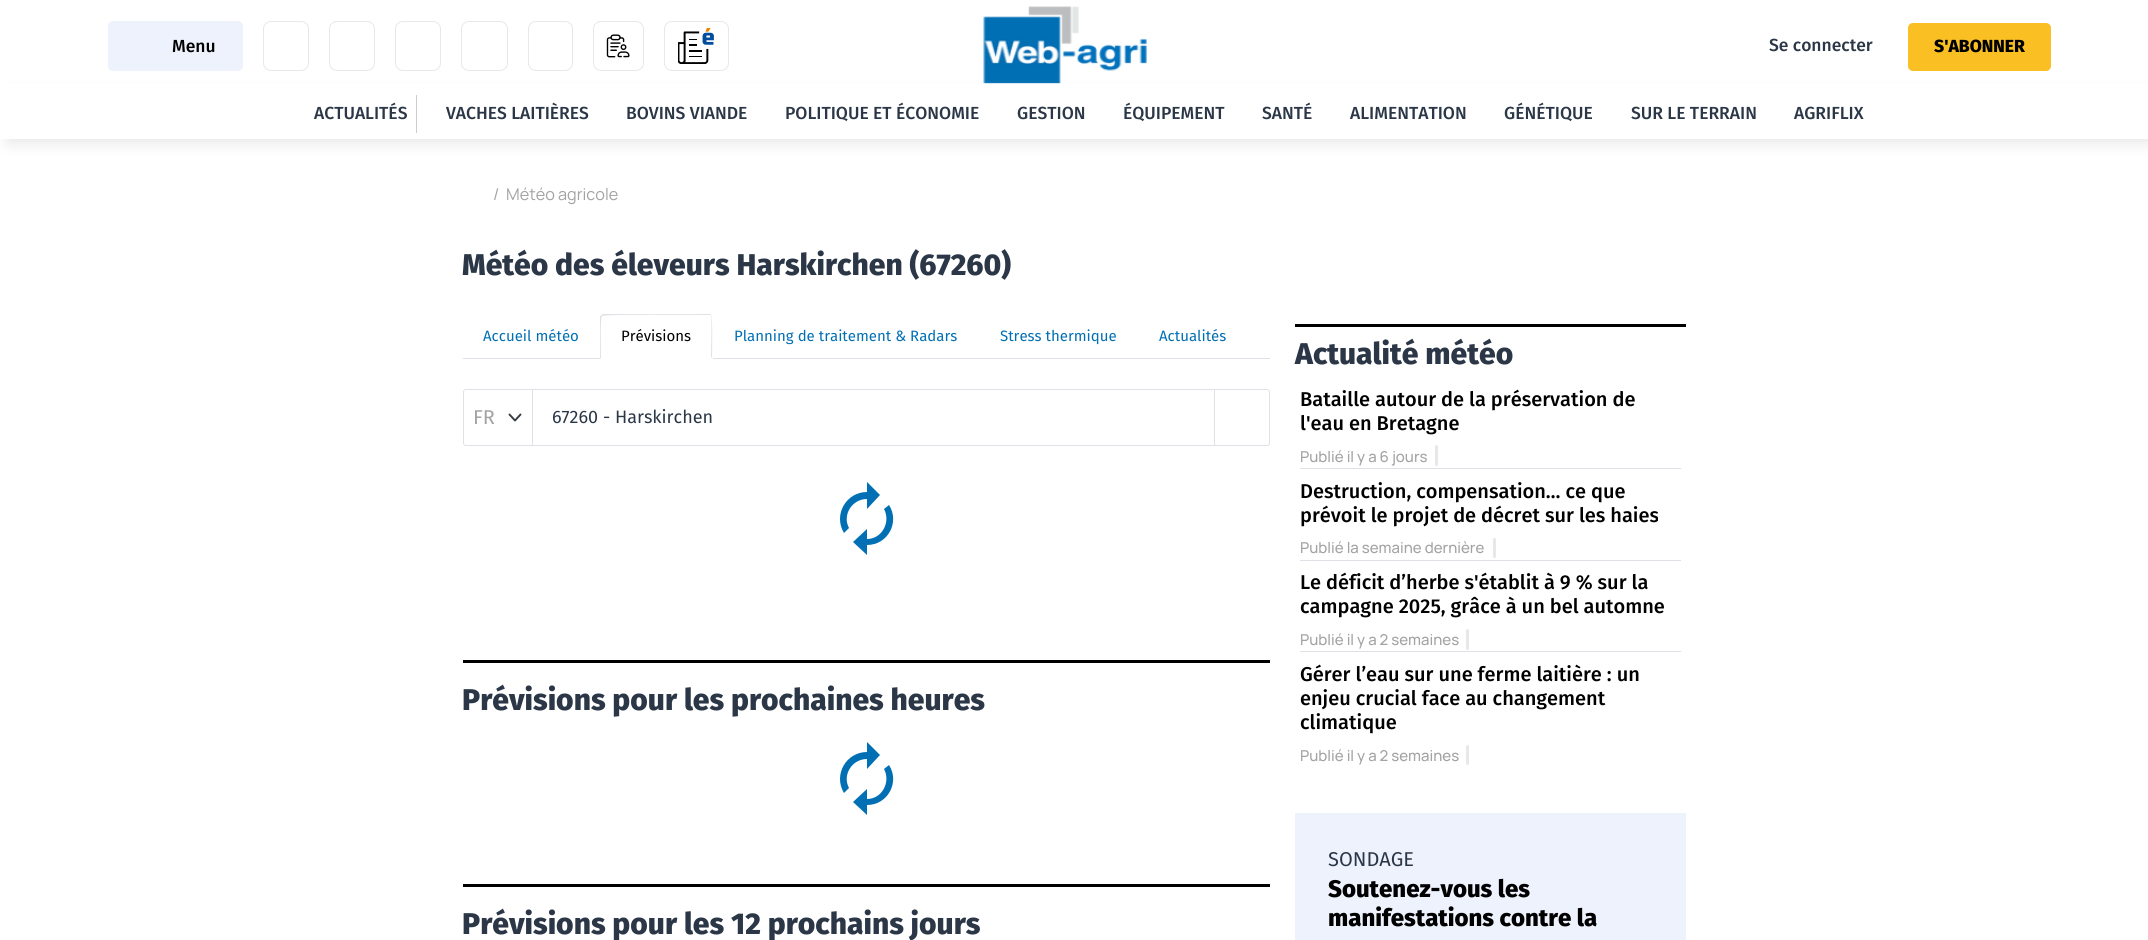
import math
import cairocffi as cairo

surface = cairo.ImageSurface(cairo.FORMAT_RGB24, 2148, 940)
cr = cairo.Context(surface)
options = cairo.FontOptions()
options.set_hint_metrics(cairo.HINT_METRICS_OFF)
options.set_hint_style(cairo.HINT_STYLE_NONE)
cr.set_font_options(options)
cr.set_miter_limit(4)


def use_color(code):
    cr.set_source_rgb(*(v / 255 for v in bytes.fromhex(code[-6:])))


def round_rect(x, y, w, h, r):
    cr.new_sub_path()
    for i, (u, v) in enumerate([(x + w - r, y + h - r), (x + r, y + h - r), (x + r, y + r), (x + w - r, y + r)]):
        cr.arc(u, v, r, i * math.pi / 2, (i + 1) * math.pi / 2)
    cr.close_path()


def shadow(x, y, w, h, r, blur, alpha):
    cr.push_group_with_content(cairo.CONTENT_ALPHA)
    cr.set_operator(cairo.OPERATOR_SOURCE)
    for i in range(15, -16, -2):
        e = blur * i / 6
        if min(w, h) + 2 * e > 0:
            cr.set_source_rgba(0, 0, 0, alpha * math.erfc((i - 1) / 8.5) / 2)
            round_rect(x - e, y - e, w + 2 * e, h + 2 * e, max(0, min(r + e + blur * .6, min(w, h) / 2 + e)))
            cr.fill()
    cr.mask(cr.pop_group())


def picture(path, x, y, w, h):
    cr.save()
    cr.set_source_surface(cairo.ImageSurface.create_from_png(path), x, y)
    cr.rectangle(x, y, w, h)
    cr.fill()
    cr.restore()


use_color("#ffffff")
cr.paint()
use_color("#000000")
shadow(8, 93, 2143, 50, 0, 7.5, 0.1)
use_color("#edf2fc")
round_rect(108, 21, 135, 50, 5)
cr.fill()
cr.select_font_face("Fira Sans Medium")
cr.set_font_size(17.5)
use_color("#000000")
cr.move_to(172, 52)
cr.show_text("Menu")
round_rect(263.5, 21.5, 45, 49, 7.5)
use_color("#e8e8e8")
cr.set_line_width(1)
cr.stroke()
round_rect(329.5, 21.5, 45, 49, 7.5)
cr.stroke()
round_rect(395.5, 21.5, 45, 49, 7.5)
cr.stroke()
round_rect(461.5, 21.5, 46, 49, 7.5)
cr.stroke()
round_rect(528.5, 21.5, 44, 49, 7.5)
cr.stroke()
round_rect(593.5, 21.5, 50, 49, 7.5)
cr.stroke()
picture("img1.png", 606, 34, 24, 24)
round_rect(664.5, 21.5, 64, 49, 7.5)
cr.stroke()
picture("img2.png", 678, 28, 36, 36)
picture("img3.png", 983, 6, 164, 78)
use_color("#2b3747")
cr.move_to(1769, 51)
cr.show_text("Se connecter")
use_color("#fac023")
round_rect(1908, 23, 143, 48, 5)
cr.fill()
cr.select_font_face("Fira Sans ExtraBold")
use_color("#000000")
cr.move_to(1934, 52)
cr.show_text("S'ABONNER")
use_color("#ffffff")
cr.rectangle(0, 84, 2148, 55)
cr.fill()
cr.select_font_face("Fira Sans Medium")
use_color("#2b3747")
cr.move_to(314, 119)
cr.show_text("ACTUALITÉS")
use_color("#cacdd1")
cr.rectangle(416, 95, 1, 38)
cr.fill()
use_color("#2b3747")
cr.move_to(446, 119)
cr.show_text("VACHES LAITIÈRES")
cr.move_to(626, 119)
cr.show_text("BOVINS VIANDE")
cr.move_to(785, 119)
cr.show_text("POLITIQUE ET ÉCONOMIE")
cr.move_to(1017, 119)
cr.show_text("GESTION")
cr.move_to(1123, 119)
cr.show_text("ÉQUIPEMENT")
cr.move_to(1262, 119)
cr.show_text("SANTÉ")
cr.move_to(1350, 119)
cr.show_text("ALIMENTATION")
cr.move_to(1504, 119)
cr.show_text("GÉNÉTIQUE")
cr.move_to(1631, 119)
cr.show_text("SUR LE TERRAIN")
cr.move_to(1794, 119)
cr.show_text("AGRIFLIX")
cr.select_font_face("Manrope")
cr.set_font_size(16.25)
use_color("#a3a3a3")
cr.move_to(493, 200)
cr.show_text("/")
cr.move_to(506, 200)
cr.show_text("Météo agricole")
cr.select_font_face("Fira Sans ExtraBold")
cr.set_font_size(30)
use_color("#2b3747")
cr.move_to(462, 275)
cr.show_text("Météo des éleveurs Harskirchen (67260)")
use_color("#dee2e6")
cr.rectangle(463, 358, 807, 1)
cr.fill()
cr.select_font_face("Fira Sans")
cr.set_font_size(15)
use_color("#006fb4")
cr.move_to(483, 341)
cr.show_text("Accueil météo")
use_color("#ffffff")
cr.new_path()
cr.move_to(603, 314)
cr.line_to(710, 314)
cr.curve_to(711.5, 314, 713, 315.5, 713, 317)
cr.line_to(713, 359)
cr.line_to(600, 359)
cr.line_to(600, 317)
cr.curve_to(600, 315.5, 601.5, 314, 603, 314)
cr.close_path()
cr.fill()
use_color("#dee2e6")
cr.new_path()
cr.move_to(603, 314)
cr.line_to(601, 315)
cr.line_to(602, 316)
cr.curve_to(603, 314, 700, 315, 710, 315)
cr.line_to(711, 316)
cr.line_to(711, 315)
cr.line_to(710, 314)
cr.close_path()
cr.fill()
cr.new_path()
cr.move_to(712, 358)
cr.curve_to(712, 353, 713, 317, 711, 315)
cr.line_to(711, 316)
cr.curve_to(712, 318, 711, 352, 711, 357)
cr.close_path()
cr.fill()
use_color("#ffffff")
cr.new_path()
cr.move_to(712, 359)
cr.line_to(600, 359)
cr.line_to(601, 358)
cr.line_to(711, 358)
cr.line_to(711, 357)
cr.close_path()
cr.fill()
use_color("#dee2e6")
cr.new_path()
cr.move_to(600, 359)
cr.line_to(601, 358)
cr.curve_to(601, 353, 600, 317, 602, 316)
cr.line_to(601, 315)
cr.line_to(600, 317)
cr.close_path()
cr.fill()
use_color("#000000")
cr.move_to(621, 341)
cr.show_text("Prévisions")
use_color("#006fb4")
cr.move_to(734, 341)
cr.show_text("Planning de traitement & Radars")
cr.move_to(1000, 341)
cr.show_text("Stress thermique")
cr.move_to(1159, 341)
cr.show_text("Actualités")
cr.new_path()
cr.move_to(509.5, 414.5)
cr.line_to(515, 420.5)
cr.line_to(520.5, 414.5)
use_color("#343a40")
cr.set_line_width(1.9)
cr.set_line_cap(cairo.LINE_CAP_ROUND)
cr.set_line_join(cairo.LINE_JOIN_ROUND)
cr.stroke()
cr.new_path()
cr.move_to(466, 389.5)
cr.line_to(532.5, 389.5)
cr.line_to(532.5, 445.5)
cr.line_to(466, 445.5)
cr.curve_to(464.5, 445.5, 463.5, 444.5, 463.5, 443)
cr.line_to(463.5, 392)
cr.curve_to(463.5, 390.5, 464.5, 389.5, 466, 389.5)
cr.close_path()
use_color("#dee2e6")
cr.set_line_width(1)
cr.set_line_cap(cairo.LINE_CAP_BUTT)
cr.set_line_join(cairo.LINE_JOIN_MITER)
cr.stroke()
cr.set_font_size(20)
use_color("#a3a3a3")
cr.move_to(473, 424)
cr.show_text("FR")
use_color("#dee2e6")
cr.rectangle(533, 389, 681, 1)
cr.fill()
cr.rectangle(533, 445, 681, 1)
cr.fill()
cr.set_font_size(18)
use_color("#2b3747")
cr.move_to(552, 423)
cr.show_text("67260 - Harskirchen")
cr.new_path()
cr.move_to(1214.5, 389.5)
cr.line_to(1267, 389.5)
cr.curve_to(1268.5, 389.5, 1269.5, 390.5, 1269.5, 392)
cr.line_to(1269.5, 443)
cr.curve_to(1269.5, 444.5, 1268.5, 445.5, 1267, 445.5)
cr.line_to(1214.5, 445.5)
cr.close_path()
use_color("#dee2e6")
cr.stroke()
use_color("#006fb4")
cr.new_path()
cr.move_to(867, 499)
cr.curve_to(852, 499, 842, 515, 849, 528)
cr.line_to(844, 533)
cr.curve_to(833, 515, 846, 492, 867, 492)
cr.line_to(867, 482)
cr.line_to(880, 495)
cr.line_to(867, 509)
cr.close_path()
cr.move_to(889, 505)
cr.curve_to(900, 522, 888, 545, 867, 545)
cr.line_to(867, 555)
cr.line_to(853, 542)
cr.line_to(867, 529)
cr.line_to(867, 539)
cr.curve_to(882, 539, 891, 522, 884, 509)
cr.close_path()
cr.fill()
use_color("#000000")
cr.rectangle(463, 660, 807, 3)
cr.fill()
cr.select_font_face("Fira Sans ExtraBold")
cr.set_font_size(30)
use_color("#2b3747")
cr.move_to(462, 710)
cr.show_text("Prévisions pour les prochaines heures")
use_color("#006fb4")
cr.new_path()
cr.move_to(867, 759)
cr.curve_to(852, 759, 842, 775, 849, 788)
cr.line_to(844, 793)
cr.curve_to(833, 775, 846, 752, 867, 752)
cr.line_to(867, 742)
cr.line_to(880, 755)
cr.line_to(867, 769)
cr.close_path()
cr.move_to(889, 765)
cr.curve_to(900, 782, 888, 805, 867, 805)
cr.line_to(867, 815)
cr.line_to(853, 802)
cr.line_to(867, 789)
cr.line_to(867, 799)
cr.curve_to(882, 799, 891, 782, 884, 769)
cr.close_path()
cr.fill()
use_color("#000000")
cr.rectangle(463, 884, 807, 3)
cr.fill()
use_color("#2b3747")
cr.move_to(462, 934)
cr.show_text("Prévisions pour les 12 prochains jours")
use_color("#000000")
cr.rectangle(1295, 324, 391, 3)
cr.fill()
use_color("#2b3747")
cr.move_to(1295, 364)
cr.show_text("Actualité météo")
use_color("#dee2e6")
cr.rectangle(1300, 468, 381, 1)
cr.fill()
cr.select_font_face("Fira Sans Medium")
cr.set_font_size(20)
use_color("#000000")
cr.move_to(1300, 406)
cr.show_text("Bataille autour de la préservation de")
cr.move_to(1300, 430)
cr.show_text("l'eau en Bretagne")
cr.select_font_face("Manrope Medium")
cr.set_font_size(15)
use_color("#a3a3a3")
cr.move_to(1300, 462)
cr.show_text("Publié il y a 6 jours")
use_color("#e8e8e8")
round_rect(1435, 445, 3, 21, 1.5)
cr.fill()
use_color("#dee2e6")
cr.rectangle(1300, 560, 381, 1)
cr.fill()
cr.select_font_face("Fira Sans Medium")
cr.set_font_size(20)
use_color("#000000")
cr.move_to(1300, 498)
cr.show_text("Destruction, compensation… ce que")
cr.move_to(1300, 522)
cr.show_text("prévoit le projet de décret sur les haies")
cr.select_font_face("Manrope Medium")
cr.set_font_size(15)
use_color("#a3a3a3")
cr.move_to(1300, 553)
cr.show_text("Publié la semaine dernière")
use_color("#e8e8e8")
round_rect(1493, 538, 3, 20, 1.5)
cr.fill()
use_color("#dee2e6")
cr.rectangle(1300, 651, 381, 1)
cr.fill()
cr.select_font_face("Fira Sans Medium")
cr.set_font_size(20)
use_color("#000000")
cr.move_to(1300, 589)
cr.show_text("Le déficit d’herbe s'établit à 9 % sur la")
cr.move_to(1300, 613)
cr.show_text("campagne 2025, grâce à un bel automne")
cr.select_font_face("Manrope Medium")
cr.set_font_size(15)
use_color("#a3a3a3")
cr.move_to(1300, 645)
cr.show_text("Publié il y a 2 semaines")
use_color("#e8e8e8")
round_rect(1466, 629, 3, 21, 1.5)
cr.fill()
cr.select_font_face("Fira Sans Medium")
cr.set_font_size(20)
use_color("#000000")
cr.move_to(1300, 681)
cr.show_text("Gérer l’eau sur une ferme laitière : un")
cr.move_to(1300, 705)
cr.show_text("enjeu crucial face au changement")
cr.move_to(1300, 729)
cr.show_text("climatique")
cr.select_font_face("Manrope Medium")
cr.set_font_size(15)
use_color("#a3a3a3")
cr.move_to(1300, 761)
cr.show_text("Publié il y a 2 semaines")
use_color("#e8e8e8")
round_rect(1466, 745, 3, 20, 1.5)
cr.fill()
use_color("#edf2fc")
cr.rectangle(1295, 813, 391, 127)
cr.fill()
cr.select_font_face("Fira Sans")
cr.set_font_size(20)
use_color("#2b3747")
cr.move_to(1328, 866)
cr.show_text("SONDAGE")
cr.select_font_face("Fira Sans ExtraBold")
cr.set_font_size(24)
use_color("#000000")
cr.move_to(1328, 897)
cr.show_text("Soutenez-vous les")
cr.move_to(1328, 926)
cr.show_text("manifestations contre la")
surface.write_to_png("result.png")
